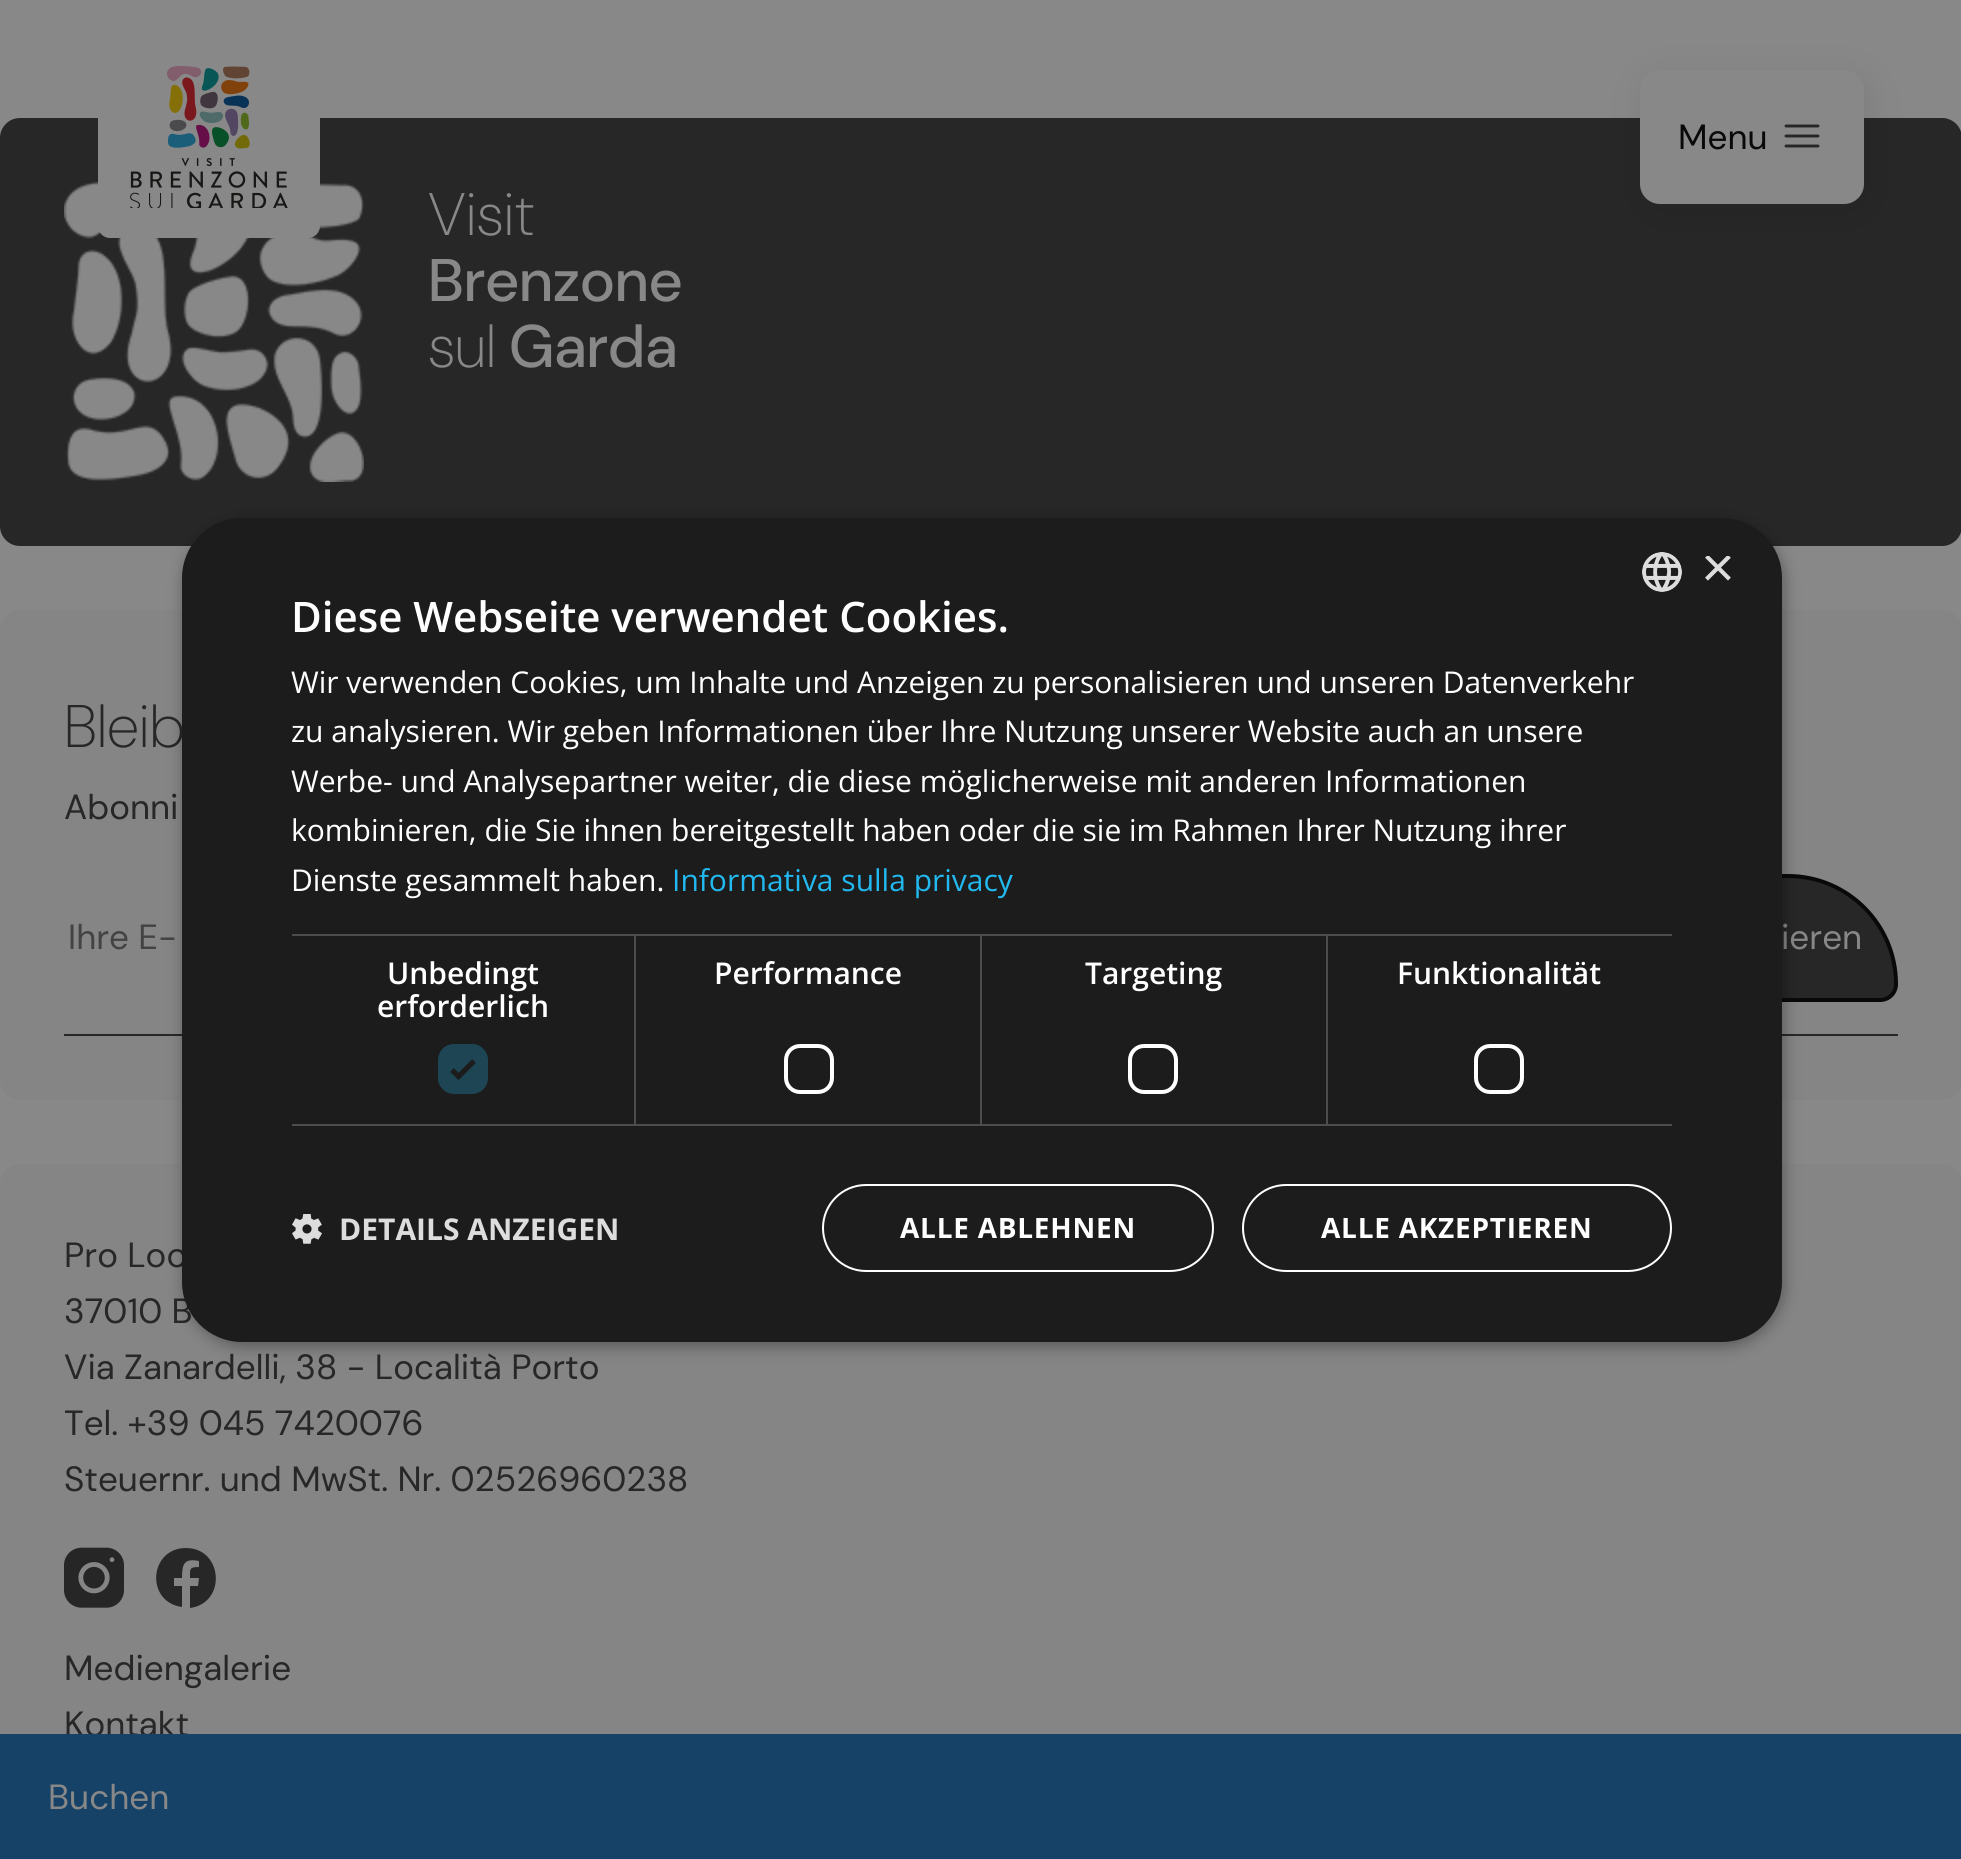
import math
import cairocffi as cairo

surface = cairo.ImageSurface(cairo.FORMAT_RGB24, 1961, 1859)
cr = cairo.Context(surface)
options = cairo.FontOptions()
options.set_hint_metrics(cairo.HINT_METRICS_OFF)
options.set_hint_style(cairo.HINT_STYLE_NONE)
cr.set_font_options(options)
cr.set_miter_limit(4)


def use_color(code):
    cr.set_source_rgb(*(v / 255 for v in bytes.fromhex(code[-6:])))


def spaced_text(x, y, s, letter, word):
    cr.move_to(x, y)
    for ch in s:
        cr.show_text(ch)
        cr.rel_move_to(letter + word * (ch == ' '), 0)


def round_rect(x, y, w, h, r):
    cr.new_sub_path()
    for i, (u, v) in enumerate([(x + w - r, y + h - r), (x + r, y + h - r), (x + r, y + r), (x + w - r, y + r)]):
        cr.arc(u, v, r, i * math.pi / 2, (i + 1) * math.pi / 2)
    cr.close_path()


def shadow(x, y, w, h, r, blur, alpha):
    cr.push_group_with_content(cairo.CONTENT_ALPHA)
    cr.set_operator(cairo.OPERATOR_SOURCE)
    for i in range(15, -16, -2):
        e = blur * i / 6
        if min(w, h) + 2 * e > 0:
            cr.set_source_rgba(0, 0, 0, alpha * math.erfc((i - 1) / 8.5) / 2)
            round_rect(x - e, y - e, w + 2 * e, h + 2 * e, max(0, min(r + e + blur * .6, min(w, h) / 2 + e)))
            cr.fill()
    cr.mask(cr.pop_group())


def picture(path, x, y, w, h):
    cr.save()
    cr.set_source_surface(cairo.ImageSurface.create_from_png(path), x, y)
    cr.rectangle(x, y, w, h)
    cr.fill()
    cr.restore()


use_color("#888888")
cr.paint()
use_color("#272727")
round_rect(0, 118, 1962, 428, 20)
cr.fill()
picture("img2.png", 64, 182, 300, 300)
use_color("#888888")
round_rect(98, 36, 222, 202, 12)
cr.fill()
picture("img1.png", 130, 66, 158, 142)
use_color("#090909")
shadow(1644, 78, 224, 134, 20, 18, 0.1)
use_color("#888888")
round_rect(1640, 70, 224, 134, 20)
cr.fill()
cr.select_font_face("DM Sans")
cr.set_font_size(35)
use_color("#090909")
cr.move_to(1678, 149)
cr.show_text("Menu")
cr.new_path()
cr.move_to(1786, 126)
cr.line_to(1818, 126)
cr.move_to(1786, 136)
cr.line_to(1818, 136)
cr.move_to(1786, 146)
cr.line_to(1818, 146)
use_color("#272727")
cr.set_line_width(2.9)
cr.set_line_cap(cairo.LINE_CAP_ROUND)
cr.set_line_join(cairo.LINE_JOIN_ROUND)
cr.stroke()
use_color("#858585")
round_rect(0, 1164, 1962, 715, 20)
cr.fill()
use_color("#272727")
cr.move_to(64, 1736)
cr.show_text("Kontakt")
use_color("#154266")
cr.rectangle(0, 1734, 1961, 125)
cr.fill()
use_color("#888888")
cr.move_to(48, 1809)
cr.show_text("Buchen")
cr.select_font_face("DM Sans ExtraLight")
cr.set_font_size(60)
cr.move_to(428, 235)
cr.show_text("Visit")
cr.select_font_face("DM Sans Medium")
cr.move_to(428, 301)
cr.show_text("Brenzone")
cr.select_font_face("DM Sans ExtraLight")
cr.move_to(428, 367)
cr.show_text("sul")
cr.select_font_face("DM Sans Medium")
cr.move_to(509, 367)
cr.show_text("Garda")
use_color("#858585")
round_rect(0, 610, 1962, 490, 20)
cr.fill()
cr.select_font_face("DM Sans ExtraLight")
use_color("#272727")
cr.move_to(64, 747)
cr.show_text("Bleib")
cr.select_font_face("DM Sans")
cr.set_font_size(35)
cr.move_to(64, 819)
cr.show_text("Abonni")
cr.rectangle(64, 1034, 1834, 2)
cr.fill()
use_color("#434343")
cr.move_to(68, 949)
cr.show_text("Ihre E-")
use_color("#272727")
cr.new_path()
cr.move_to(1648, 876)
cr.line_to(1788, 876)
cr.curve_to(1847.5, 876, 1896, 924.5, 1896, 984)
cr.curve_to(1896, 993, 1889, 1000, 1880, 1000)
cr.line_to(1692, 1000)
cr.curve_to(1663.5, 1000, 1640, 976.5, 1640, 948)
cr.line_to(1640, 884)
cr.curve_to(1640, 879.5, 1643.5, 876, 1648, 876)
cr.close_path()
cr.fill_preserve()
use_color("#090909")
cr.set_line_width(4)
cr.set_line_cap(cairo.LINE_CAP_BUTT)
cr.set_line_join(cairo.LINE_JOIN_MITER)
cr.stroke()
use_color("#888888")
cr.move_to(1781, 949)
cr.show_text("ieren")
use_color("#272727")
cr.move_to(64, 1267)
cr.show_text("Pro Loc")
cr.move_to(64, 1323)
cr.show_text("37010 B")
cr.move_to(64, 1379)
cr.show_text("Via Zanardelli, 38 - Località Porto")
cr.move_to(64, 1435)
cr.show_text("Tel. +39 045 7420076")
cr.move_to(64, 1491)
cr.show_text("Steuernr. und MwSt. Nr. 02526960238")
picture("img3.png", 64, 1547, 60, 61)
cr.new_path()
cr.move_to(186, 1548)
cr.curve_to(149, 1548, 145, 1602, 182, 1607)
cr.line_to(182, 1586)
cr.line_to(174, 1586)
cr.line_to(174, 1578)
cr.line_to(182, 1578)
cr.curve_to(182, 1564, 184, 1558, 199, 1561)
cr.line_to(199, 1567)
cr.curve_to(189, 1567, 190, 1569, 190, 1578)
cr.line_to(199, 1578)
cr.line_to(198, 1586)
cr.line_to(190, 1586)
cr.line_to(190, 1608)
cr.curve_to(227, 1603, 223, 1548, 186, 1548)
cr.close_path()
cr.fill()
cr.move_to(64, 1680)
cr.show_text("Mediengalerie")
use_color("#000000")
shadow(184, 522, 1600, 824, 60, 8, 0.35)
use_color("#1c1c1c")
round_rect(182, 518, 1600, 824, 60)
cr.fill()
picture("img4.png", 1642, 552, 40, 40)
cr.save()
cr.rectangle(1702, 556, 30, 30)
cr.clip()
cr.select_font_face("Liberation Sans")
cr.set_font_size(58)
use_color("#dddddd")
cr.move_to(1701, 587)
cr.show_text("×")
cr.restore()
cr.select_font_face("Open Sans SemiBold")
cr.set_font_size(42)
use_color("#ffffff")
cr.move_to(291, 632)
cr.show_text("Diese Webseite verwendet Cookies.")
cr.select_font_face("Open Sans")
cr.set_font_size(30)
cr.move_to(291, 693)
cr.show_text("Wir verwenden Cookies, um Inhalte und Anzeigen zu personalisieren und unseren Datenverkehr")
cr.move_to(291, 742)
cr.show_text("zu analysieren. Wir geben Informationen über Ihre Nutzung unserer Website auch an unsere")
cr.move_to(291, 792)
cr.show_text("Werbe- und Analysepartner weiter, die diese möglicherweise mit anderen Informationen")
cr.move_to(291, 841)
cr.show_text("kombinieren, die Sie ihnen bereitgestellt haben oder die sie im Rahmen Ihrer Nutzung ihrer")
cr.move_to(291, 891)
cr.show_text("Dienste gesammelt haben.")
use_color("#22b8f0")
cr.move_to(672, 891)
cr.show_text("Informativa sulla privacy")
use_color("#4d4d4d")
cr.rectangle(292, 934, 1380, 2)
cr.fill()
cr.rectangle(634, 934, 2, 192)
cr.fill()
cr.rectangle(292, 1124, 344, 2)
cr.fill()
cr.select_font_face("Open Sans SemiBold")
use_color("#ffffff")
cr.move_to(387, 984)
cr.show_text("Unbedingt")
cr.move_to(377, 1017)
cr.show_text("erforderlich")
use_color("#1e4553")
round_rect(438, 1044, 50, 50, 16)
cr.fill()
cr.new_path()
cr.move_to(452, 1070)
cr.line_to(458.5, 1076.5)
cr.line_to(474, 1061)
use_color("#1c1c1c")
cr.set_line_width(5.2)
cr.stroke()
use_color("#4d4d4d")
cr.rectangle(980, 934, 2, 192)
cr.fill()
cr.rectangle(636, 1124, 346, 2)
cr.fill()
use_color("#ffffff")
cr.move_to(714, 984)
cr.show_text("Performance")
round_rect(786, 1046, 46, 46, 14)
cr.set_line_width(4)
cr.stroke()
use_color("#4d4d4d")
cr.rectangle(1326, 934, 2, 192)
cr.fill()
cr.rectangle(982, 1124, 690, 2)
cr.fill()
use_color("#ffffff")
cr.move_to(1085, 984)
cr.show_text("Targeting")
round_rect(1130, 1046, 46, 46, 14)
cr.stroke()
cr.move_to(1397, 984)
cr.show_text("Funktionalität")
round_rect(1476, 1046, 46, 46, 14)
cr.stroke()
picture("img5.png", 292, 1214, 30, 30)
cr.select_font_face("Open Sans", cairo.FONT_SLANT_NORMAL, cairo.FONT_WEIGHT_BOLD)
use_color("#dddddd")
cr.move_to(339, 1240)
cr.show_text("DETAILS ANZEIGEN")
round_rect(823, 1185, 390, 86, 43)
use_color("#ffffff")
cr.set_line_width(2)
cr.stroke()
cr.set_font_size(28)
spaced_text(900, 1238, "ALLE ABLEHNEN", 0.75, 0)
round_rect(1243, 1185, 428, 86, 43)
cr.stroke()
spaced_text(1321, 1238, "ALLE AKZEPTIEREN", 0.75, 0)
surface.write_to_png("result.png")
